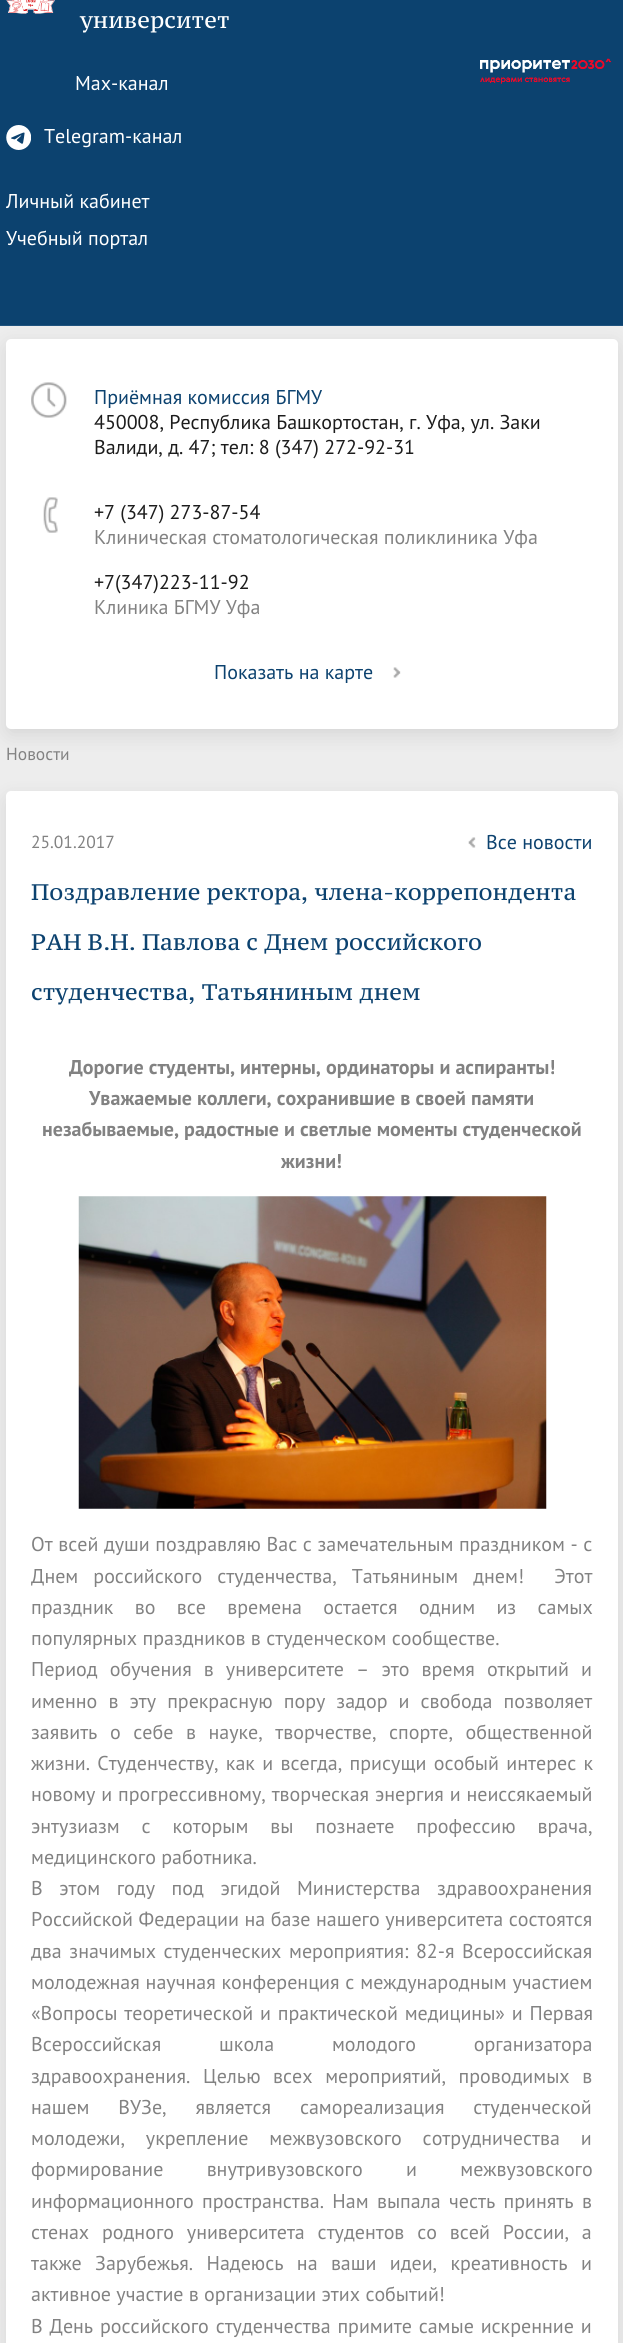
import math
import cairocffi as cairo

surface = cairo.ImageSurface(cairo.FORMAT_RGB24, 623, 2343)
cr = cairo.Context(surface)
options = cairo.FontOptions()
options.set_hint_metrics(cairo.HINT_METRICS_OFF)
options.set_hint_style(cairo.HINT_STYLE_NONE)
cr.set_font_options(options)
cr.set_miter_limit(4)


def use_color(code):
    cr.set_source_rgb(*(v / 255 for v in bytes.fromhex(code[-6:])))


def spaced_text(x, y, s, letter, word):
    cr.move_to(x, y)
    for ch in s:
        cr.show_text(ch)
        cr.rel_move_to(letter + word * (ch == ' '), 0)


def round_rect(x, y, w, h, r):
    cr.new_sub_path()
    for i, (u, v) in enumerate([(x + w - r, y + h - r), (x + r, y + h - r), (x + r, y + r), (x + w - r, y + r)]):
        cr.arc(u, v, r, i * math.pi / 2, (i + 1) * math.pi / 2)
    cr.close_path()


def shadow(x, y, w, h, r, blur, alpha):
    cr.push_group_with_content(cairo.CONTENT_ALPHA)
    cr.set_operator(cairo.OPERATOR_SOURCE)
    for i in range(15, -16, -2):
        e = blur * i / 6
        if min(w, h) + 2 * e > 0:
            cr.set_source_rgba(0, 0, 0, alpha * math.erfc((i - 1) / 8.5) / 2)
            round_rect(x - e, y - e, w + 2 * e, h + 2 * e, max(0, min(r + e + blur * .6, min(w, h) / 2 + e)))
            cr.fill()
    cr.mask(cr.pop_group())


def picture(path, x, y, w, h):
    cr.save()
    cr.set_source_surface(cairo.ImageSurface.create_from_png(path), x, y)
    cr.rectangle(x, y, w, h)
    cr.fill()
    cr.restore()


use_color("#ededed")
cr.paint()
use_color("#0c426f")
cr.rectangle(0, 0, 623, 325)
cr.fill()
picture("img1.png", 6, 0, 49, 14)
cr.select_font_face("PT Serif Caption")
cr.set_font_size(22.5)
use_color("#ffffff")
cr.move_to(80, 28)
cr.show_text("университет")
cr.select_font_face("PT Sans")
cr.set_font_size(20)
cr.move_to(75, 90)
cr.show_text("Max-канал")
picture("img2.png", 6, 125, 25, 25)
cr.move_to(44, 143)
cr.show_text("Telegram-канал")
cr.move_to(6, 208)
cr.show_text("Личный кабинет")
cr.move_to(6, 245)
cr.show_text("Учебный портал")
picture("img3.png", 480, 58, 132, 26)
use_color("#1f537e")
cr.rectangle(0, 325, 623, 1)
cr.fill()
use_color("#000000")
shadow(6, 345, 612, 390, 5, 9.5, 0.1)
use_color("#ffffff")
round_rect(6, 339, 612, 390, 5)
cr.fill()
picture("img4.png", 31, 382, 36, 36)
use_color("#0c426f")
cr.move_to(94, 404)
cr.show_text("Приёмная комиссия БГМУ")
use_color("#1c1c1c")
cr.move_to(94, 429)
cr.show_text("450008, Республика Башкортостан, г. Уфа, ул. Заки")
cr.move_to(94, 454)
cr.show_text("Валиди, д. 47; тел: 8 (347) 272-92-31")
picture("img5.png", 43, 497, 15, 36)
cr.move_to(94, 519)
cr.show_text("+7 (347) 273-87-54")
use_color("#828282")
cr.move_to(94, 544)
cr.show_text("Клиническая стоматологическая поликлиника Уфа")
use_color("#1c1c1c")
cr.move_to(94, 589)
cr.show_text("+7(347)223-11-92")
use_color("#828282")
cr.move_to(94, 614)
cr.show_text("Клиника БГМУ Уфа")
use_color("#0c426f")
cr.move_to(214, 679)
cr.show_text("Показать на карте")
picture("img6.png", 393, 667, 8, 11)
cr.set_font_size(17.5)
use_color("#828282")
cr.move_to(6, 760)
cr.show_text("Новости")
use_color("#000000")
shadow(6, 798, 612, 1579, 5, 9.5, 0.1)
use_color("#ffffff")
round_rect(6, 791, 612, 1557, 5)
cr.fill()
use_color("#828282")
cr.move_to(31, 848)
cr.show_text("25.01.2017")
picture("img7.png", 468, 837, 8, 11)
cr.set_font_size(20)
use_color("#0c426f")
cr.move_to(486, 849)
cr.show_text("Все новости")
cr.select_font_face("PT Serif Caption")
cr.set_font_size(22.5)
cr.move_to(31, 900)
cr.show_text("Поздравление ректора, члена-коррепондента")
cr.move_to(31, 950)
cr.show_text("РАН В.Н. Павлова с Днем российского")
cr.move_to(31, 1000)
cr.show_text("студенчества, Татьяниным днем")
cr.select_font_face("PT Sans", cairo.FONT_SLANT_NORMAL, cairo.FONT_WEIGHT_BOLD)
cr.set_font_size(20)
use_color("#828282")
cr.move_to(69, 1074)
cr.show_text("Дорогие студенты, интерны, ординаторы и аспиранты!")
cr.move_to(89, 1105)
cr.show_text("Уважаемые коллеги, сохранившие в своей памяти")
cr.move_to(42, 1136)
cr.show_text("незабываемые, радостные и светлые моменты студенческой")
cr.move_to(281, 1168)
cr.show_text("жизни!")
picture("img8.png", 78, 1196, 469, 313)
cr.select_font_face("PT Sans")
spaced_text(31, 1551, "От всей души поздравляю Вас с замечательным праздником - с", 0, 0.25)
spaced_text(31, 1583, "Днем российского студенчества, Татьяниным днем!  Этот", 0, 9.75)
spaced_text(31, 1614, "праздник во все времена остается одним из самых", 0, 16)
cr.move_to(31, 1645)
cr.show_text("популярных праздников в студенческом сообществе.")
spaced_text(31, 1676, "Период обучения в университете – это время открытий и", 0, 6.75)
spaced_text(31, 1708, "именно в эту прекрасную пору задор и свобода позволяет", 0, 5.75)
spaced_text(31, 1739, "заявить о себе в науке, творчестве, спорте, общественной", 0, 7.25)
spaced_text(31, 1770, "жизни. Студенчеству, как и всегда, присущи особый интерес к", 0, 2)
spaced_text(31, 1801, "новому и прогрессивному, творческая энергия и неиссякаемый", 0, 0.5)
spaced_text(31, 1833, "энтузиазм с которым вы познаете профессию врача,", 0, 16.5)
cr.move_to(31, 1864)
cr.show_text("медицинского работника.")
spaced_text(31, 1895, "В этом году под эгидой Министерства здравоохранения", 0, 11.25)
spaced_text(31, 1926, "Российской Федерации на базе нашего университета состоятся", 0, 0.25)
spaced_text(31, 1958, "два значимых студенческих мероприятия: 82-я Всероссийская", 0, 2.25)
spaced_text(31, 1989, "молодежная научная конференция с международным участием", 0, 0.5)
spaced_text(31, 2020, "«Вопросы теоретической и практической медицины» и Первая", 0, 1.5)
spaced_text(31, 2051, "Всероссийская школа молодого организатора", 0, 52.5)
spaced_text(31, 2083, "здравоохранения. Целью всех мероприятий, проводимых в", 0, 7.25)
spaced_text(31, 2114, "нашем ВУЗе, является самореализация студенческой", 0, 23.5)
spaced_text(31, 2145, "молодежи, укрепление межвузовского сотрудничества и", 0, 15.5)
spaced_text(31, 2176, "формирование внутривузовского и межвузовского", 0, 38)
spaced_text(31, 2208, "информационного пространства. Нам выпала честь принять в", 0, 3)
spaced_text(31, 2239, "стенах родного университета студентов со всей России, а", 0, 7.5)
spaced_text(31, 2270, "также Зарубежья. Надеюсь на ваши идеи, креативность и", 0, 8)
cr.move_to(31, 2301)
cr.show_text("активное участие в организации этих событий!")
spaced_text(31, 2333, "В День российского студенчества примите самые искренние и", 0, 1.5)
surface.write_to_png("result.png")
